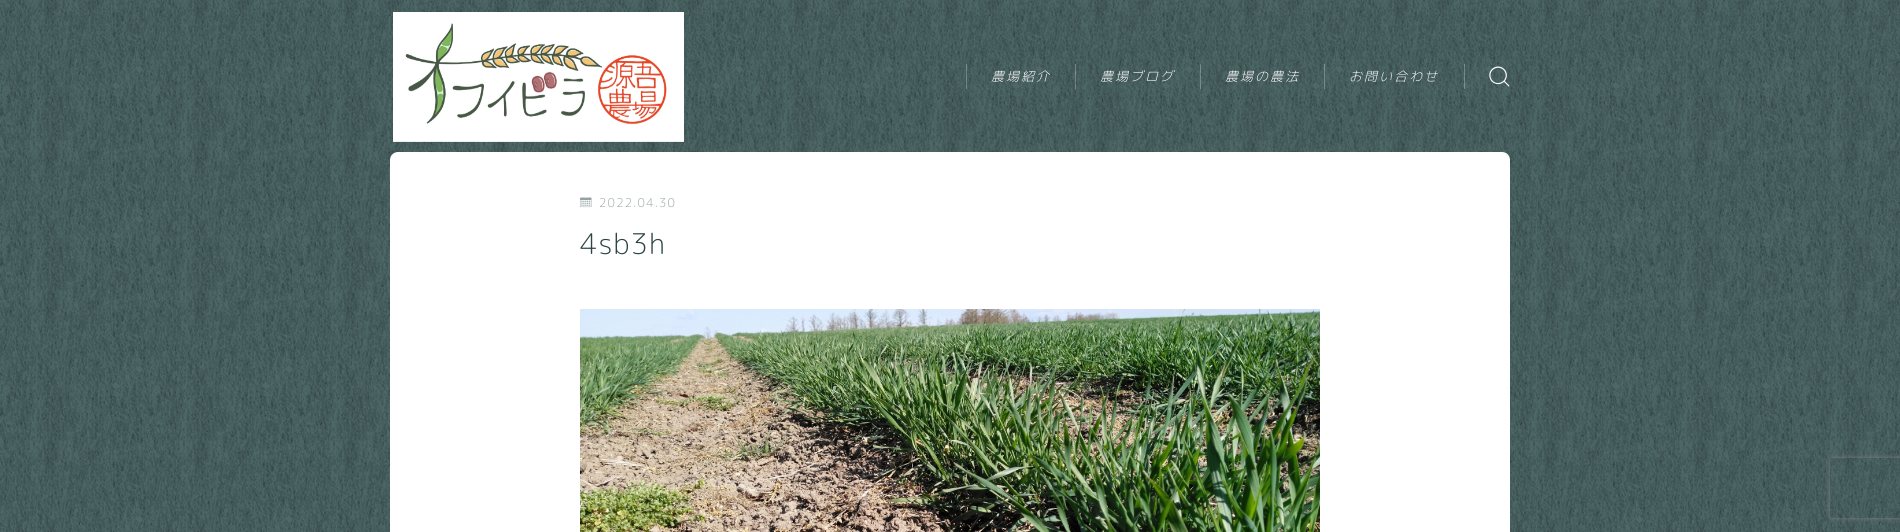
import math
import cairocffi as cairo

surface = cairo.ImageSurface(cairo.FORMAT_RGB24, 1900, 532)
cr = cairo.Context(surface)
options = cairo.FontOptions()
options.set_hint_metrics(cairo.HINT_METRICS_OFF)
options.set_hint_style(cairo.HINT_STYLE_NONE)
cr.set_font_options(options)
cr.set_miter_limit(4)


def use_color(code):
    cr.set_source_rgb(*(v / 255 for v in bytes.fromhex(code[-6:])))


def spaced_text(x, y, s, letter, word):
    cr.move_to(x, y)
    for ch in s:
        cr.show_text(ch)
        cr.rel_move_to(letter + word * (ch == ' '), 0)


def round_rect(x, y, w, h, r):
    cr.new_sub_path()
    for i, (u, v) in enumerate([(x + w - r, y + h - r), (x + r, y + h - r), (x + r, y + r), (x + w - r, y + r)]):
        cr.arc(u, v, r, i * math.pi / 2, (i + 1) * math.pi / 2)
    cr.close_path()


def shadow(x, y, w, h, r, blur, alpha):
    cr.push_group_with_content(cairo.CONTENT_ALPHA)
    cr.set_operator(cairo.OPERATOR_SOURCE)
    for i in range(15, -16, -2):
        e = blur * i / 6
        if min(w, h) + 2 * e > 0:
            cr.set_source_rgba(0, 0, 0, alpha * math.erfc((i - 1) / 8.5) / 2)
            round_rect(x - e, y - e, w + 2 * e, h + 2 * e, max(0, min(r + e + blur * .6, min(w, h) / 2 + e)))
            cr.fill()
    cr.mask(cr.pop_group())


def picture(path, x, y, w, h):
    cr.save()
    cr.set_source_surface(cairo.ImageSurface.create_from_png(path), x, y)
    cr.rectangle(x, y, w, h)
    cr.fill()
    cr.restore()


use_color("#4e6868")
cr.paint()
picture("img1.png", 0, 0, 1900, 532)
picture("img2.png", 393, 12, 291, 130)
cr.set_source_rgba(1, 1, 1, 0.27)
cr.rectangle(1075, 64, 1, 25)
cr.fill()
cr.rectangle(966, 64, 1, 25)
cr.fill()
cr.select_font_face("Rounded Mplus 1c Light", cairo.FONT_SLANT_ITALIC)
cr.set_font_size(13)
use_color("#ffffff")
spaced_text(991, 81, "農場紹介", 2, 0)
cr.set_source_rgba(1, 1, 1, 0.27)
cr.rectangle(1200, 64, 1, 25)
cr.fill()
use_color("#ffffff")
spaced_text(1100, 81, "農場ブログ", 2, 0)
cr.set_source_rgba(1, 1, 1, 0.27)
cr.rectangle(1324, 64, 1, 25)
cr.fill()
use_color("#ffffff")
spaced_text(1225, 81, "農場の農法", 2, 0)
cr.set_source_rgba(1, 1, 1, 0.27)
cr.rectangle(1464, 64, 1, 25)
cr.fill()
use_color("#ffffff")
spaced_text(1349, 81, "お問い合わせ", 2, 0)
picture("img3.png", 1489, 66, 21, 21)
round_rect(390, 152, 1120, 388, 8)
cr.fill()
picture("img4.png", 580, 197, 12, 11)
cr.select_font_face("Rounded Mplus 1c Light")
cr.set_font_size(12)
use_color("#96a2a2")
spaced_text(599, 207, "2022.04.30", 1.25, 0)
cr.set_font_size(28.5)
use_color("#2d4444")
spaced_text(580, 254, "4sb3h", 1, 0)
picture("img5.png", 580, 309, 740, 223)
cr.save()
cr.set_fill_rule(cairo.FILL_RULE_EVEN_ODD)
cr.new_path()
cr.move_to(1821, 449)
cr.line_to(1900, 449)
cr.line_to(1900, 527)
cr.line_to(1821, 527)
cr.close_path()
cr.move_to(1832, 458)
cr.line_to(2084, 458)
cr.curve_to(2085, 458, 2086, 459, 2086, 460)
cr.line_to(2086, 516)
cr.curve_to(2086, 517, 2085, 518, 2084, 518)
cr.line_to(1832, 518)
cr.curve_to(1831, 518, 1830, 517, 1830, 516)
cr.line_to(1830, 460)
cr.curve_to(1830, 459, 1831, 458, 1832, 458)
cr.close_path()
cr.clip()
use_color("#808080")
shadow(1830, 458, 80, 60, 2, 2.5, 1)
cr.restore()
surface.write_to_png("result.png")
